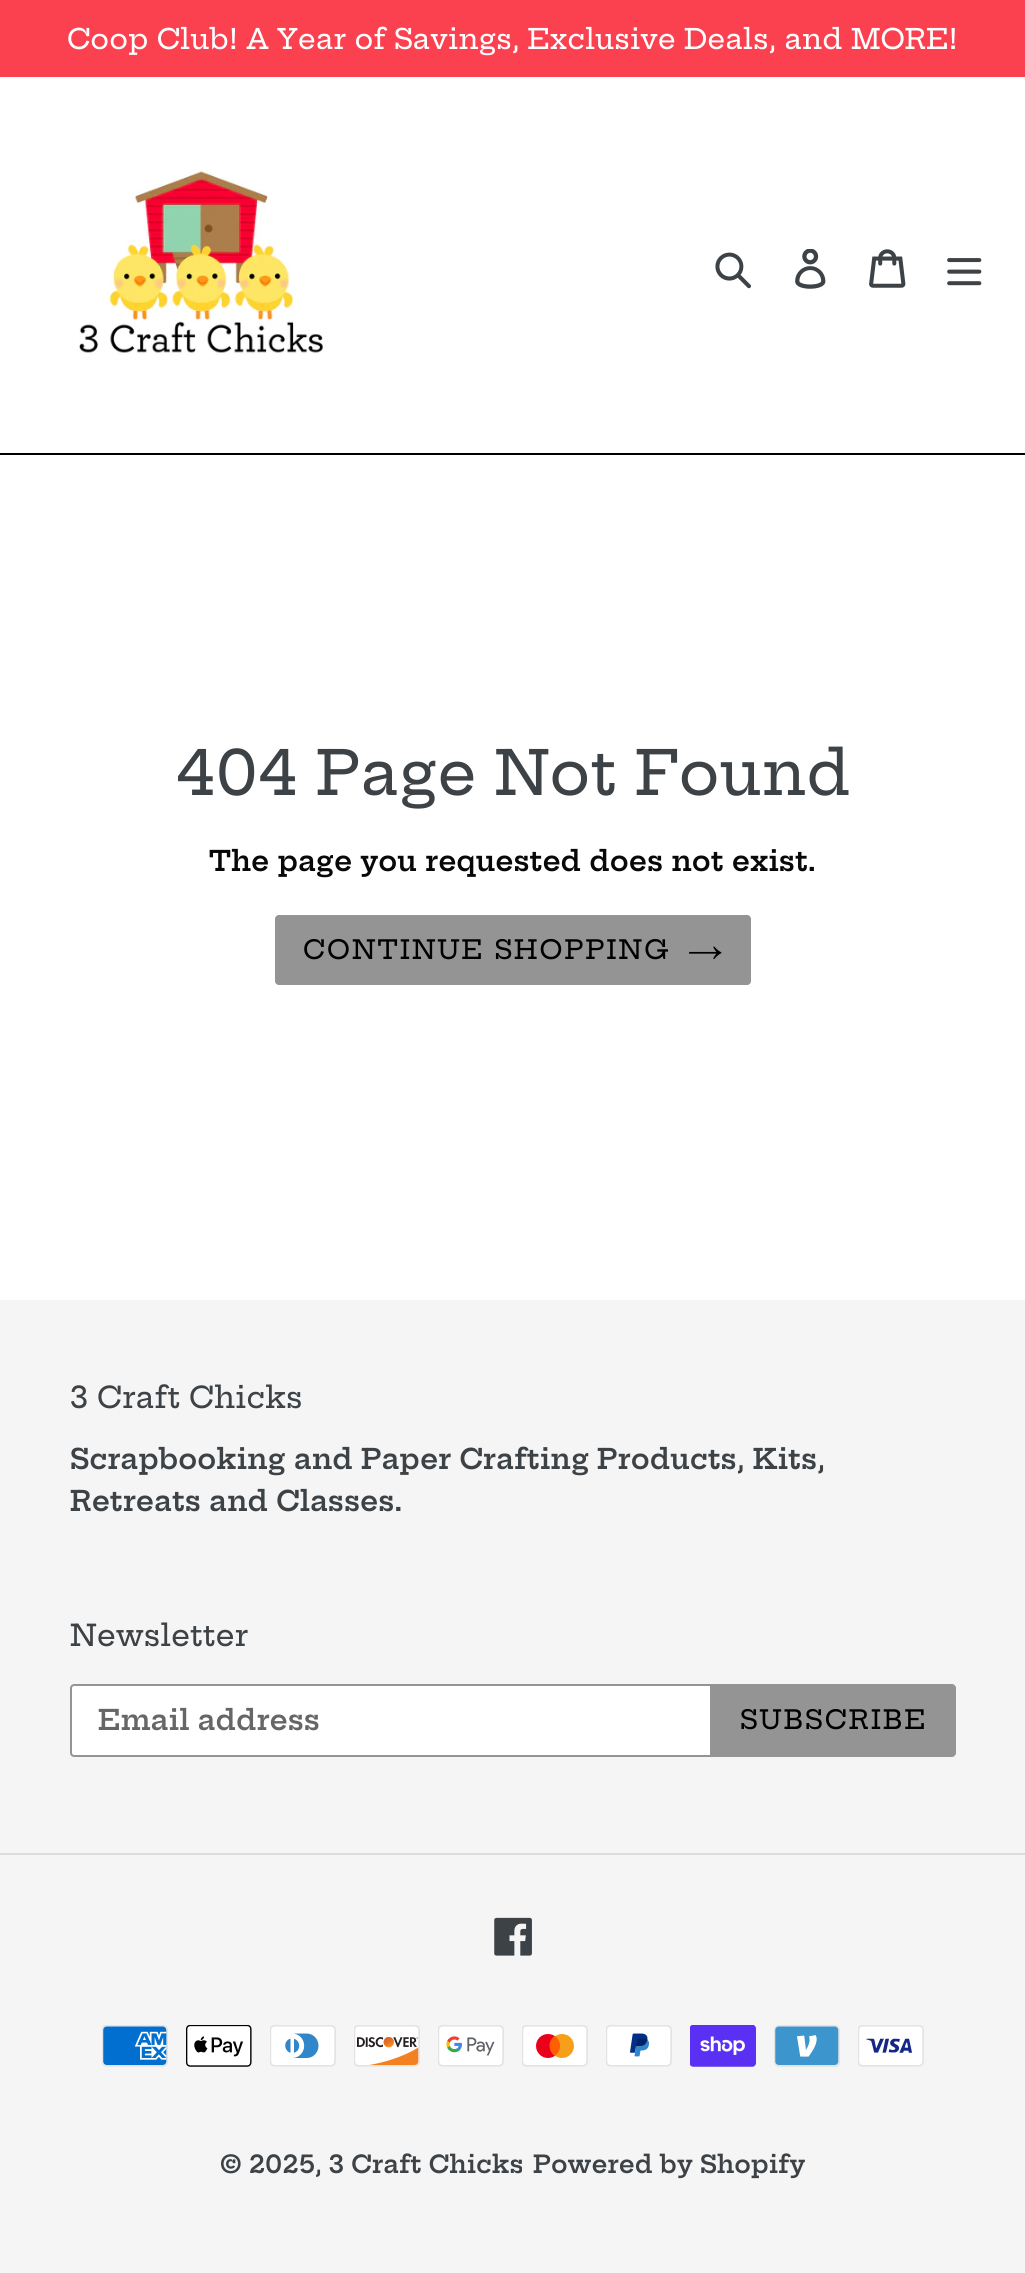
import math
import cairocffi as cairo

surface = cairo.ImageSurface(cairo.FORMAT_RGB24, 1025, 2273)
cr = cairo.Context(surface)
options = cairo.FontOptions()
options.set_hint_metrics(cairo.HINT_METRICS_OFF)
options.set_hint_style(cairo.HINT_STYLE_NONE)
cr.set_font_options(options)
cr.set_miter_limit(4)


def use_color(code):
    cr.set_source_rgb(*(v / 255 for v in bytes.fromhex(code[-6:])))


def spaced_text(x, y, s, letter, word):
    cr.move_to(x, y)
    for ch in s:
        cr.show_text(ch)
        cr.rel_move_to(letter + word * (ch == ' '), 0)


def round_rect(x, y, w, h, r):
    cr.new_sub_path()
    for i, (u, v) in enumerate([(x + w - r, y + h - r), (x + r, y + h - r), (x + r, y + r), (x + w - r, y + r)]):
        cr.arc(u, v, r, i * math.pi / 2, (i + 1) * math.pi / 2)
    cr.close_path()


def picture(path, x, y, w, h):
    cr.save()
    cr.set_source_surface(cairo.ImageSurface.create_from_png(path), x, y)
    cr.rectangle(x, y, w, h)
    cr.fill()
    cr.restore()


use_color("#ffffff")
cr.paint()
use_color("#fb414f")
cr.rectangle(0, 0, 1025, 77)
cr.fill()
cr.select_font_face("Hepta Slab Medium")
cr.set_font_size(28)
use_color("#ffffff")
cr.move_to(67, 49)
cr.show_text("Coop Club! A Year of Savings, Exclusive Deals, and MORE!")
use_color("#000000")
cr.rectangle(0, 453, 1025, 2)
cr.fill()
picture("img1.png", 79, 169, 244, 186)
picture("img2.png", 715, 252, 36, 37)
picture("img3.png", 795, 249, 31, 40)
picture("img4.png", 869, 249, 37, 39)
picture("img5.png", 947, 258, 35, 28)
cr.set_font_size(61.25)
use_color("#3d4246")
cr.move_to(176, 795)
cr.show_text("404 Page Not Found")
cr.select_font_face("Hepta Slab SemiBold")
cr.set_font_size(28)
use_color("#080808")
cr.move_to(209, 871)
cr.show_text("The page you requested does not exist.")
use_color("#949494")
round_rect(275, 915, 476, 70, 4)
cr.fill()
cr.select_font_face("Hepta Slab Medium")
cr.set_font_size(26.25)
use_color("#000000")
spaced_text(303, 959, "CONTINUE SHOPPING", 2.1, 0)
picture("img6.png", 689, 946, 33, 13)
use_color("#f5f5f5")
cr.rectangle(0, 1300, 1025, 973)
cr.fill()
cr.set_font_size(29.75)
use_color("#3d4246")
cr.move_to(70, 1408)
cr.show_text("3 Craft Chicks")
cr.select_font_face("Hepta Slab SemiBold")
cr.set_font_size(28)
cr.move_to(70, 1469)
cr.show_text("Scrapbooking and Paper Crafting Products, Kits,")
cr.move_to(70, 1511)
cr.show_text("Retreats and Classes.")
cr.select_font_face("Hepta Slab Medium")
cr.set_font_size(29.75)
cr.move_to(70, 1646)
cr.show_text("Newsletter")
use_color("#ffffff")
cr.new_path()
cr.move_to(74, 1685)
cr.line_to(711, 1685)
cr.line_to(711, 1756)
cr.line_to(74, 1756)
cr.curve_to(72.5, 1756, 71, 1754.5, 71, 1753)
cr.line_to(71, 1688)
cr.curve_to(71, 1686.5, 72.5, 1685, 74, 1685)
cr.close_path()
cr.fill_preserve()
use_color("#949494")
cr.stroke()
cr.select_font_face("Hepta Slab SemiBold")
cr.set_font_size(28)
use_color("#666666")
cr.move_to(98, 1730)
cr.show_text("Email address")
use_color("#949494")
cr.new_path()
cr.move_to(712, 1684)
cr.line_to(952, 1684)
cr.curve_to(954, 1684, 956, 1686, 956, 1688)
cr.line_to(956, 1753)
cr.curve_to(956, 1755, 954, 1757, 952, 1757)
cr.line_to(712, 1757)
cr.close_path()
cr.fill()
cr.select_font_face("Hepta Slab Medium")
cr.set_font_size(26.25)
use_color("#000000")
spaced_text(740, 1729, "SUBSCRIBE", 2.1, 0)
use_color("#dcdcdc")
cr.rectangle(0, 1853, 1025, 2)
cr.fill()
picture("img7.png", 494, 1917, 38, 39)
picture("img8.png", 102, 2025, 66, 42)
picture("img9.png", 186, 2025, 66, 42)
picture("img10.png", 270, 2025, 66, 42)
picture("img11.png", 354, 2025, 66, 42)
picture("img12.png", 438, 2025, 66, 42)
picture("img13.png", 522, 2025, 66, 42)
picture("img14.png", 606, 2025, 66, 42)
picture("img15.png", 690, 2025, 66, 42)
picture("img16.png", 774, 2025, 66, 42)
picture("img17.png", 858, 2025, 66, 42)
cr.select_font_face("Hepta Slab SemiBold")
cr.set_font_size(24.5)
use_color("#3d4246")
cr.move_to(220, 2173)
cr.show_text("© 2025, 3 Craft Chicks")
cr.move_to(533, 2173)
cr.show_text("Powered by Shopify")
surface.write_to_png("result.png")
